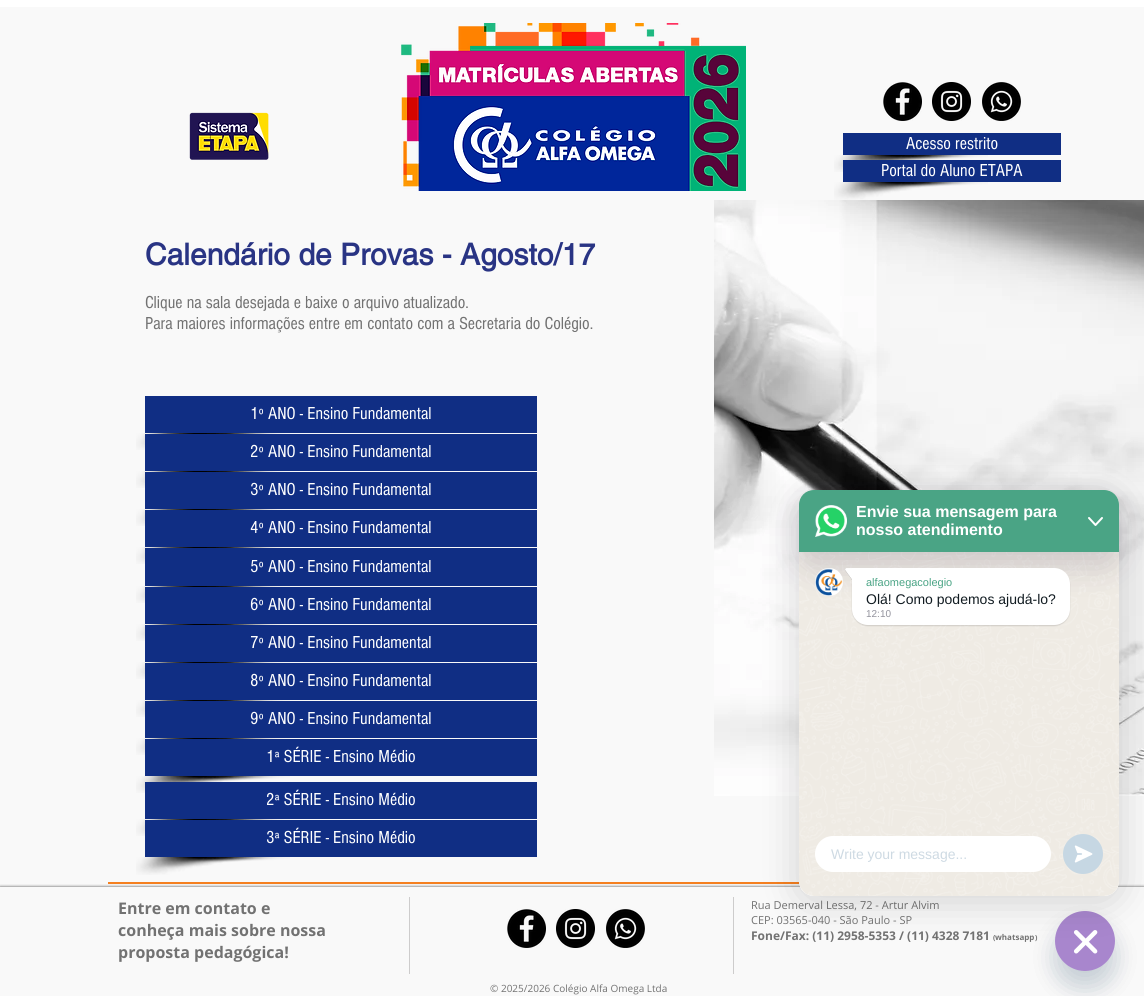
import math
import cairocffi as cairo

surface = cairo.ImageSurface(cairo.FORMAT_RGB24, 1144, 996)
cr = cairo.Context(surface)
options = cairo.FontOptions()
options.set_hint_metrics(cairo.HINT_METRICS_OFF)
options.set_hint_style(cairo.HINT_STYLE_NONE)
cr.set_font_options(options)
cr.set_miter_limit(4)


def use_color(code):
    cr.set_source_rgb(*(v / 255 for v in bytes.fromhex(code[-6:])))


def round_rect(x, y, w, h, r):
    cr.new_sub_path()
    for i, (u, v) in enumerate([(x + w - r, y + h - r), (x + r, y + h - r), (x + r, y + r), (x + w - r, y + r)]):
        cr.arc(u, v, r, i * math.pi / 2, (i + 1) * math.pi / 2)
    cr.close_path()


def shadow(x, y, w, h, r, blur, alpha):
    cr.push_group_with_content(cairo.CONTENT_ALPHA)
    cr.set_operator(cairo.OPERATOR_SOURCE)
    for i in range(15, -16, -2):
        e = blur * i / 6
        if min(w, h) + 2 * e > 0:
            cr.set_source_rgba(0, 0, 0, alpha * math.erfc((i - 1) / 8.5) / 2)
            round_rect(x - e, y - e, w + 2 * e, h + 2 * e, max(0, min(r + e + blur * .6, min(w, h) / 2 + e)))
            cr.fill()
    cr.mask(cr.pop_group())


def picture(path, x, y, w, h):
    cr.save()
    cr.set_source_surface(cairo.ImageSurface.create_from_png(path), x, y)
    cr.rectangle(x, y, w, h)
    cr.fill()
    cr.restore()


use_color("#f9f9f9")
cr.paint()
use_color("#ffffff")
cr.rectangle(0, 0, 1144, 7)
cr.fill()
picture("img1.png", 189, 112, 80, 48)
picture("img2.png", 401, 23, 345, 168)
picture("img3.png", 883, 82, 39, 39)
picture("img4.png", 932, 82, 39, 39)
picture("img5.png", 982, 82, 39, 39)
use_color("#102e84")
cr.rectangle(843, 133, 218, 22)
cr.fill()
cr.select_font_face("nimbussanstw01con")
cr.set_font_size(18)
use_color("#ffffff")
cr.move_to(906, 149)
cr.show_text("Acesso restrito")
picture("img6.png", 834, 155, 154, 17)
use_color("#102e84")
cr.rectangle(843, 160, 218, 22)
cr.fill()
use_color("#ffffff")
cr.move_to(881, 176)
cr.show_text("Portal do Aluno ETAPA")
picture("img7.png", 834, 182, 154, 18)
cr.select_font_face("helvetica", cairo.FONT_SLANT_NORMAL, cairo.FONT_WEIGHT_BOLD)
cr.set_font_size(30)
use_color("#293484")
cr.move_to(145, 265)
cr.show_text("Calendário de Provas - Agosto/17")
cr.select_font_face("nimbussanstw01con")
cr.set_font_size(18)
use_color("#727272")
cr.move_to(145, 308)
cr.show_text("Clique na sala desejada e baixe o arquivo atualizado.")
cr.move_to(145, 329)
cr.show_text("Para maiores informações entre em contato com a Secretaria do Colégio.")
picture("img8.png", 714, 200, 430, 596)
use_color("#102e84")
cr.rectangle(145, 396, 392, 37)
cr.fill()
use_color("#ffffff")
cr.move_to(250, 419)
cr.show_text("1º ANO - Ensino Fundamental")
picture("img6.png", 136, 433, 154, 17)
use_color("#102e84")
cr.rectangle(145, 434, 392, 37)
cr.fill()
use_color("#ffffff")
cr.move_to(250, 457)
cr.show_text("2º ANO - Ensino Fundamental")
picture("img6.png", 136, 471, 154, 17)
use_color("#102e84")
cr.rectangle(145, 472, 392, 37)
cr.fill()
use_color("#ffffff")
cr.move_to(250, 495)
cr.show_text("3º ANO - Ensino Fundamental")
picture("img6.png", 136, 509, 154, 17)
use_color("#102e84")
cr.rectangle(145, 510, 392, 37)
cr.fill()
use_color("#ffffff")
cr.move_to(250, 533)
cr.show_text("4º ANO - Ensino Fundamental")
picture("img6.png", 136, 547, 154, 17)
use_color("#102e84")
cr.rectangle(145, 548, 392, 38)
cr.fill()
use_color("#ffffff")
cr.move_to(250, 572)
cr.show_text("5º ANO - Ensino Fundamental")
picture("img6.png", 136, 586, 154, 17)
use_color("#102e84")
cr.rectangle(145, 587, 392, 37)
cr.fill()
use_color("#ffffff")
cr.move_to(250, 610)
cr.show_text("6º ANO - Ensino Fundamental")
picture("img6.png", 136, 624, 154, 17)
use_color("#102e84")
cr.rectangle(145, 625, 392, 37)
cr.fill()
use_color("#ffffff")
cr.move_to(250, 648)
cr.show_text("7º ANO - Ensino Fundamental")
picture("img6.png", 136, 662, 154, 17)
use_color("#102e84")
cr.rectangle(145, 663, 392, 37)
cr.fill()
use_color("#ffffff")
cr.move_to(250, 686)
cr.show_text("8º ANO - Ensino Fundamental")
picture("img6.png", 136, 700, 154, 17)
use_color("#102e84")
cr.rectangle(145, 701, 392, 37)
cr.fill()
use_color("#ffffff")
cr.move_to(250, 724)
cr.show_text("9º ANO - Ensino Fundamental")
picture("img6.png", 136, 738, 154, 17)
use_color("#102e84")
cr.rectangle(145, 739, 392, 37)
cr.fill()
use_color("#ffffff")
cr.move_to(266, 762)
cr.show_text("1ª SÉRIE - Ensino Médio")
picture("img6.png", 136, 776, 154, 17)
use_color("#102e84")
cr.rectangle(145, 782, 392, 37)
cr.fill()
use_color("#ffffff")
cr.move_to(266, 805)
cr.show_text("2ª SÉRIE - Ensino Médio")
picture("img6.png", 136, 819, 154, 17)
use_color("#102e84")
cr.rectangle(145, 820, 392, 37)
cr.fill()
use_color("#ffffff")
cr.move_to(266, 843)
cr.show_text("3ª SÉRIE - Ensino Médio")
picture("img7.png", 136, 857, 154, 18)
use_color("#f58020")
cr.rectangle(108, 882, 692, 2)
cr.fill()
cr.save()
cr.rectangle(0, 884, 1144, 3)
cr.clip()
use_color("#000000")
shadow(0, 887, 1144, 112, 0, 1.5, 0.7)
cr.restore()
cr.select_font_face("Open Sans", cairo.FONT_SLANT_NORMAL, cairo.FONT_WEIGHT_BOLD)
cr.set_font_size(16)
use_color("#727272")
cr.move_to(118, 914)
cr.show_text("Entre em contato e")
cr.move_to(118, 936)
cr.show_text("conheça mais sobre nossa")
cr.move_to(118, 958)
cr.show_text("proposta pedagógica!")
use_color("#cdcccc")
cr.rectangle(409, 897, 1, 77)
cr.fill()
picture("img3.png", 507, 909, 39, 39)
picture("img4.png", 556, 909, 39, 39)
picture("img5.png", 606, 909, 39, 39)
cr.rectangle(733, 897, 1, 77)
cr.fill()
cr.select_font_face("Open Sans")
cr.set_font_size(11)
use_color("#727272")
cr.move_to(751, 909)
cr.show_text("Rua Demerval Lessa, 72 - Artur Alvim")
cr.move_to(751, 924)
cr.show_text("CEP: 03565-040 - São Paulo - SP")
cr.select_font_face("Open Sans", cairo.FONT_SLANT_NORMAL, cairo.FONT_WEIGHT_BOLD)
cr.set_font_size(12)
cr.move_to(751, 940)
cr.show_text("Fone/Fax: (11) 2958-5353 / (11) 4328 7181")
cr.set_font_size(7)
cr.move_to(993, 940)
cr.show_text("(")
cr.set_font_size(8)
cr.move_to(995, 940)
cr.show_text("whatsapp")
cr.set_font_size(7)
cr.move_to(1035, 940)
cr.show_text(")")
cr.select_font_face("Open Sans")
cr.set_font_size(10)
cr.move_to(490, 992)
cr.show_text("© 2025/2026 Colégio Alfa Omega Ltda")
use_color("#49687e")
shadow(1055, 927, 60, 60, 30, 12, 0.16)
picture("img14.png", 1055, 911, 60, 60)
use_color("#000000")
shadow(799, 495, 320, 406, 15, 20, 0.16)
cr.save()
cr.set_fill_rule(cairo.FILL_RULE_EVEN_ODD)
cr.new_path()
cr.move_to(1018, 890)
cr.line_to(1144, 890)
cr.line_to(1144, 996)
cr.line_to(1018, 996)
cr.close_path()
cr.move_to(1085, 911)
cr.curve_to(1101.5, 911, 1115, 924.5, 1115, 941)
cr.curve_to(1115, 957.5, 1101.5, 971, 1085, 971)
cr.curve_to(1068.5, 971, 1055, 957.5, 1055, 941)
cr.curve_to(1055, 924.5, 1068.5, 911, 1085, 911)
cr.close_path()
cr.clip()
use_color("#49687e")
shadow(1055, 927, 60, 60, 30, 12, 0.16)
cr.restore()
use_color("#ffffff")
round_rect(799, 490, 320, 406, 15)
cr.fill()
picture("img9.png", 799, 490, 320, 406)
use_color("#1a0e35")
shadow(799, 506, 320, 62, 15, 16, 0.16)
use_color("#4aa485")
cr.new_path()
cr.move_to(814, 490)
cr.line_to(1104, 490)
cr.curve_to(1112.5, 490, 1119, 496.5, 1119, 505)
cr.line_to(1119, 552)
cr.line_to(799, 552)
cr.line_to(799, 505)
cr.curve_to(799, 496.5, 805.5, 490, 814, 490)
cr.close_path()
cr.fill()
picture("img10.png", 815, 505, 32, 32)
cr.select_font_face("Liberation Sans", cairo.FONT_SLANT_NORMAL, cairo.FONT_WEIGHT_BOLD)
cr.set_font_size(16)
use_color("#ffffff")
cr.move_to(856, 517)
cr.show_text("Envie sua mensagem para")
cr.move_to(856, 535)
cr.show_text("nosso atendimento")
cr.new_path()
cr.move_to(1089, 518)
cr.line_to(1095.5, 525)
cr.line_to(1102, 518)
cr.set_line_cap(cairo.LINE_CAP_ROUND)
cr.set_line_join(cairo.LINE_JOIN_ROUND)
cr.stroke()
picture("img11.png", 815, 568, 28, 28)
use_color("#000000")
shadow(852, 569, 218, 57, 16, 0.5, 0.13)
use_color("#ffffff")
cr.new_path()
cr.move_to(852, 568)
cr.line_to(1054, 568)
cr.curve_to(1063, 568, 1070, 575, 1070, 584)
cr.line_to(1070, 609)
cr.curve_to(1070, 618, 1063, 625, 1054, 625)
cr.line_to(868, 625)
cr.curve_to(859, 625, 852, 618, 852, 609)
cr.close_path()
cr.fill()
picture("img12.png", 845, 568, 7, 12)
cr.select_font_face("Liberation Sans")
cr.set_font_size(11)
use_color("#4aa485")
cr.move_to(866, 586)
cr.show_text("alfaomegacolegio")
cr.set_font_size(14)
use_color("#111b21")
cr.move_to(866, 604)
cr.show_text("Olá! Como podemos ajudá-lo?")
cr.set_font_size(10)
use_color("#93939d")
cr.move_to(866, 617)
cr.show_text("12:10")
use_color("#ffffff")
round_rect(815, 836, 236, 36, 18)
cr.fill()
cr.set_font_size(14)
use_color("#cedae3")
cr.move_to(831, 859)
cr.show_text("Write your message...")
use_color("#c6d7e3")
cr.new_path()
cr.arc(1083, 854, 20, 0, 2 * math.pi)
cr.fill()
picture("img13.png", 1074, 845, 19, 18)
surface.write_to_png("result.png")
